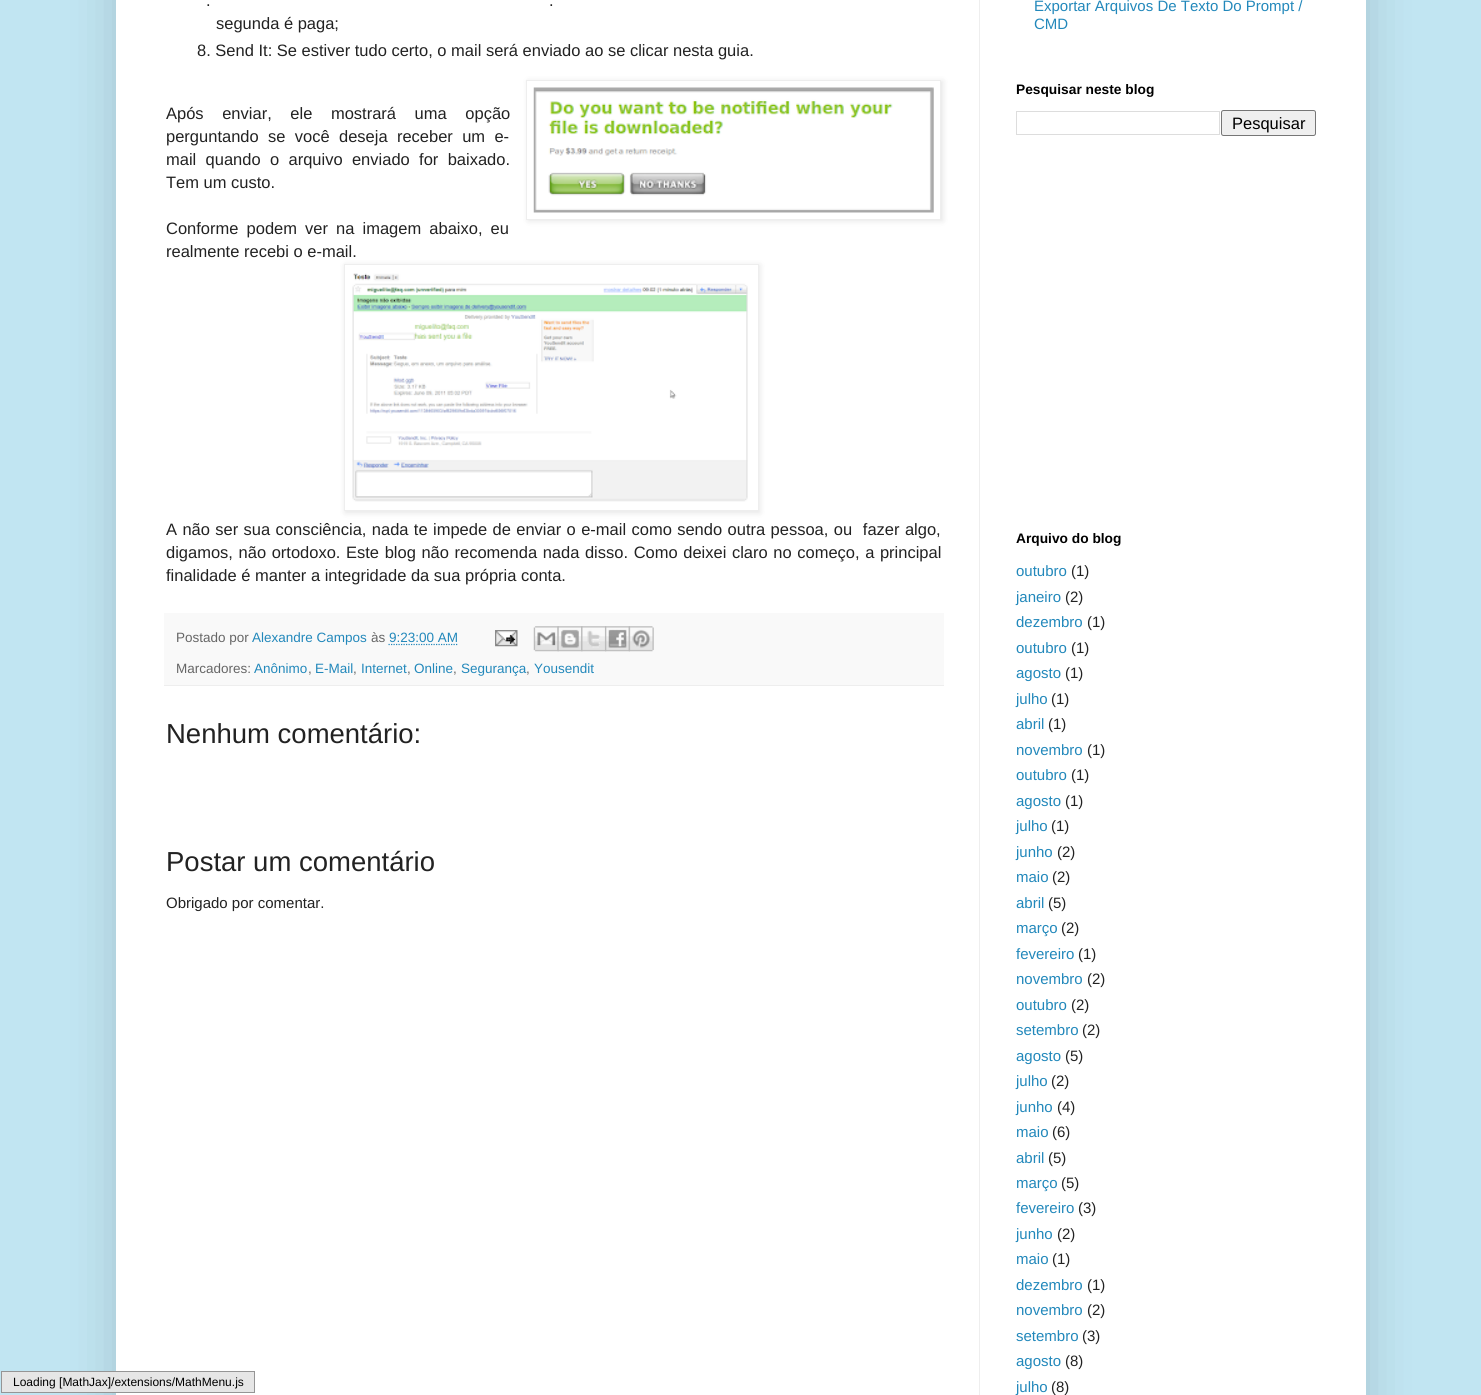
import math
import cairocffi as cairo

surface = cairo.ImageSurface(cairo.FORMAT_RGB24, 1481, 1395)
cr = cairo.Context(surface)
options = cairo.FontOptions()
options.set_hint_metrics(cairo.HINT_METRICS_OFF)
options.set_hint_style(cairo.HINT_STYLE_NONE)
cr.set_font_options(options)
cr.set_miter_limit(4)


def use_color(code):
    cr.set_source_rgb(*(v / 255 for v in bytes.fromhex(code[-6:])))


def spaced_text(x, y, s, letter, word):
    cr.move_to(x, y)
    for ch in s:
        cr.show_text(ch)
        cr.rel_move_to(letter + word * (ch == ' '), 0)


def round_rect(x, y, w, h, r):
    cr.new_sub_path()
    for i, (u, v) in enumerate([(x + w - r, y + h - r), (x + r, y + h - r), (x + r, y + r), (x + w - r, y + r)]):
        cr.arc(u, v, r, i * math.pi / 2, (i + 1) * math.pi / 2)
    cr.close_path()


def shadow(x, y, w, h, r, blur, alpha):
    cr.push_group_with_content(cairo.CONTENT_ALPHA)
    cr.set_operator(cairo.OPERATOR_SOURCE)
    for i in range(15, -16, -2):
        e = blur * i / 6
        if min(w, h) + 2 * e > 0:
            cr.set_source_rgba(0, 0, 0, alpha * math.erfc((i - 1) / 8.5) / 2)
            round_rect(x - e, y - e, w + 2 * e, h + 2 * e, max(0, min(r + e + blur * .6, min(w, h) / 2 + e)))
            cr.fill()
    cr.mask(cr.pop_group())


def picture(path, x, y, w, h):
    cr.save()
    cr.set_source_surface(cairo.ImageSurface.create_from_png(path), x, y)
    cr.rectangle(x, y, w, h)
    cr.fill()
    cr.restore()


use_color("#c1e5f2")
cr.paint()
use_color("#000000")
shadow(116, -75, 1250, 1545, 0, 25, 0.15)
use_color("#ffffff")
cr.rectangle(116, 0, 1250, 1395)
cr.fill()
use_color("#e6e6e6")
cr.rectangle(1.5, 1371.5, 253, 21)
cr.fill_preserve()
use_color("#959595")
cr.set_line_width(1)
cr.stroke()
cr.select_font_face("Liberation Sans")
cr.set_font_size(12)
use_color("#000000")
cr.move_to(13, 1386)
cr.show_text("Loading [MathJax]/extensions/MathMenu.js")
cr.set_font_size(16.5)
use_color("#222222")
cr.move_to(206, 6)
cr.show_text(".")
spaced_text(549, 6, ".", 0, 4)
cr.move_to(216, 29)
cr.show_text("segunda é paga;")
cr.move_to(197, 56)
cr.show_text("8. Send It: Se estiver tudo certo, o mail será enviado ao se clicar nesta guia.")
spaced_text(166, 119, "Após enviar, ele mostrará uma opção", 0, 14)
use_color("#000000")
shadow(528, 81, 415, 140, 0, 3, 0.1)
use_color("#ffffff")
cr.rectangle(526.5, 80.5, 414, 139)
cr.fill_preserve()
use_color("#eeeeee")
cr.stroke()
picture("img1.png", 533, 87, 401, 126)
use_color("#222222")
spaced_text(166, 142, "perguntando se você deseja receber um e-", 0, 4.75)
spaced_text(166, 165, "mail quando o arquivo enviado for baixado.", 0, 4.75)
cr.move_to(166, 188)
cr.show_text("Tem um custo.")
spaced_text(166, 234, "Conforme podem ver na imagem abaixo, eu", 0, 3.5)
cr.move_to(166, 257)
cr.show_text("realmente recebi o e-mail.")
use_color("#000000")
shadow(345, 265, 415, 248, 0, 3, 0.1)
use_color("#ffffff")
cr.rectangle(344.5, 264.5, 414, 246)
cr.fill_preserve()
use_color("#eeeeee")
cr.stroke()
picture("img2.png", 352, 273, 396, 229)
use_color("#222222")
spaced_text(166, 535, "A não ser sua consciência, nada te impede de enviar o e-mail como sendo outra pessoa, ou  fazer algo,", 0, 0.8)
spaced_text(166, 558, "digamos, não ortodoxo. Este blog não recomenda nada disso. Como deixei claro no começo, a principal", 0, 1)
cr.move_to(166, 581)
cr.show_text("finalidade é manter a integridade da sua própria conta.")
use_color("#f9f9f9")
cr.rectangle(164, 613, 780, 72)
cr.fill()
use_color("#eeeeee")
cr.rectangle(164, 685, 780, 1)
cr.fill()
cr.set_font_size(13.5)
use_color("#666666")
cr.move_to(176, 642)
cr.show_text("Postado por")
use_color("#2288bb")
cr.move_to(252, 642)
cr.show_text("Alexandre Campos")
use_color("#666666")
cr.move_to(371, 642)
cr.show_text("às")
use_color("#2288bb")
cr.move_to(389, 642)
cr.show_text("9:23:00 AM")
cr.new_path()
cr.move_to(388.5, 644.5)
cr.line_to(457.5, 644.5)
cr.set_line_width(1.2)
cr.set_dash([1.25, 1.25])
cr.stroke()
picture("img3.png", 495, 630, 23, 17)
picture("img4.png", 533, 626, 26, 26)
picture("img5.png", 557, 626, 26, 26)
picture("img6.png", 581, 626, 26, 26)
picture("img7.png", 605, 626, 25, 26)
picture("img8.png", 628, 626, 26, 26)
use_color("#666666")
cr.move_to(176, 673)
cr.show_text("Marcadores:")
use_color("#2288bb")
cr.move_to(254, 673)
cr.show_text("Anônimo")
use_color("#666666")
cr.move_to(308, 673)
cr.show_text(",")
use_color("#2288bb")
cr.move_to(315, 673)
cr.show_text("E-Mail")
use_color("#666666")
cr.move_to(353, 673)
cr.show_text(",")
use_color("#2288bb")
cr.move_to(361, 673)
cr.show_text("Internet")
use_color("#666666")
cr.move_to(407, 673)
cr.show_text(",")
use_color("#2288bb")
cr.move_to(414, 673)
cr.show_text("Online")
use_color("#666666")
cr.move_to(453, 673)
cr.show_text(",")
use_color("#2288bb")
cr.move_to(461, 673)
cr.show_text("Segurança")
use_color("#666666")
cr.move_to(526, 673)
cr.show_text(",")
use_color("#2288bb")
cr.move_to(534, 673)
cr.show_text("Yousendit")
cr.set_font_size(27.5)
use_color("#222222")
cr.move_to(166, 743)
cr.show_text("Nenhum comentário:")
cr.move_to(166, 871)
cr.show_text("Postar um comentário")
cr.set_font_size(15)
cr.move_to(166, 908)
cr.show_text("Obrigado por comentar.")
use_color("#2288bb")
cr.move_to(1034, 11)
cr.show_text("Exportar Arquivos De Texto Do Prompt /")
cr.move_to(1034, 29)
cr.show_text("CMD")
cr.select_font_face("Liberation Sans", cairo.FONT_SLANT_NORMAL, cairo.FONT_WEIGHT_BOLD)
cr.set_font_size(13.75)
use_color("#000000")
cr.move_to(1016, 94)
cr.show_text("Pesquisar neste blog")
cr.rectangle(1016.5, 111.5, 203, 23)
use_color("#dddddd")
cr.set_line_width(1)
cr.set_dash([])
cr.stroke()
use_color("#efefef")
round_rect(1221.5, 110.5, 94, 25, 2)
cr.fill_preserve()
use_color("#767676")
cr.stroke()
cr.select_font_face("Liberation Sans")
cr.set_font_size(16.5)
use_color("#000000")
cr.move_to(1232, 129)
cr.show_text("Pesquisar")
cr.select_font_face("Liberation Sans", cairo.FONT_SLANT_NORMAL, cairo.FONT_WEIGHT_BOLD)
cr.set_font_size(13.75)
cr.move_to(1016, 543)
cr.show_text("Arquivo do blog")
cr.select_font_face("Liberation Sans")
cr.set_font_size(15)
use_color("#2288bb")
cr.move_to(1016, 576)
cr.show_text("outubro")
use_color("#222222")
cr.move_to(1071, 576)
cr.show_text("(1)")
use_color("#2288bb")
cr.move_to(1016, 602)
cr.show_text("janeiro")
use_color("#222222")
cr.move_to(1065, 602)
cr.show_text("(2)")
use_color("#2288bb")
cr.move_to(1016, 627)
cr.show_text("dezembro")
use_color("#222222")
cr.move_to(1087, 627)
cr.show_text("(1)")
use_color("#2288bb")
cr.move_to(1016, 653)
cr.show_text("outubro")
use_color("#222222")
cr.move_to(1071, 653)
cr.show_text("(1)")
use_color("#2288bb")
cr.move_to(1016, 678)
cr.show_text("agosto")
use_color("#222222")
cr.move_to(1065, 678)
cr.show_text("(1)")
use_color("#2288bb")
cr.move_to(1016, 704)
cr.show_text("julho")
use_color("#222222")
cr.move_to(1051, 704)
cr.show_text("(1)")
use_color("#2288bb")
cr.move_to(1016, 729)
cr.show_text("abril")
use_color("#222222")
cr.move_to(1048, 729)
cr.show_text("(1)")
use_color("#2288bb")
cr.move_to(1016, 755)
cr.show_text("novembro")
use_color("#222222")
cr.move_to(1087, 755)
cr.show_text("(1)")
use_color("#2288bb")
cr.move_to(1016, 780)
cr.show_text("outubro")
use_color("#222222")
cr.move_to(1071, 780)
cr.show_text("(1)")
use_color("#2288bb")
cr.move_to(1016, 806)
cr.show_text("agosto")
use_color("#222222")
cr.move_to(1065, 806)
cr.show_text("(1)")
use_color("#2288bb")
cr.move_to(1016, 831)
cr.show_text("julho")
use_color("#222222")
cr.move_to(1051, 831)
cr.show_text("(1)")
use_color("#2288bb")
cr.move_to(1016, 857)
cr.show_text("junho")
use_color("#222222")
cr.move_to(1057, 857)
cr.show_text("(2)")
use_color("#2288bb")
cr.move_to(1016, 882)
cr.show_text("maio")
use_color("#222222")
cr.move_to(1052, 882)
cr.show_text("(2)")
use_color("#2288bb")
cr.move_to(1016, 908)
cr.show_text("abril")
use_color("#222222")
cr.move_to(1048, 908)
cr.show_text("(5)")
use_color("#2288bb")
cr.move_to(1016, 933)
cr.show_text("março")
use_color("#222222")
cr.move_to(1061, 933)
cr.show_text("(2)")
use_color("#2288bb")
cr.move_to(1016, 959)
cr.show_text("fevereiro")
use_color("#222222")
cr.move_to(1078, 959)
cr.show_text("(1)")
use_color("#2288bb")
cr.move_to(1016, 984)
cr.show_text("novembro")
use_color("#222222")
cr.move_to(1087, 984)
cr.show_text("(2)")
use_color("#2288bb")
cr.move_to(1016, 1010)
cr.show_text("outubro")
use_color("#222222")
cr.move_to(1071, 1010)
cr.show_text("(2)")
use_color("#2288bb")
cr.move_to(1016, 1035)
cr.show_text("setembro")
use_color("#222222")
cr.move_to(1082, 1035)
cr.show_text("(2)")
use_color("#2288bb")
cr.move_to(1016, 1061)
cr.show_text("agosto")
use_color("#222222")
cr.move_to(1065, 1061)
cr.show_text("(5)")
use_color("#2288bb")
cr.move_to(1016, 1086)
cr.show_text("julho")
use_color("#222222")
cr.move_to(1051, 1086)
cr.show_text("(2)")
use_color("#2288bb")
cr.move_to(1016, 1112)
cr.show_text("junho")
use_color("#222222")
cr.move_to(1057, 1112)
cr.show_text("(4)")
use_color("#2288bb")
cr.move_to(1016, 1137)
cr.show_text("maio")
use_color("#222222")
cr.move_to(1052, 1137)
cr.show_text("(6)")
use_color("#2288bb")
cr.move_to(1016, 1163)
cr.show_text("abril")
use_color("#222222")
cr.move_to(1048, 1163)
cr.show_text("(5)")
use_color("#2288bb")
cr.move_to(1016, 1188)
cr.show_text("março")
use_color("#222222")
cr.move_to(1061, 1188)
cr.show_text("(5)")
use_color("#2288bb")
cr.move_to(1016, 1213)
cr.show_text("fevereiro")
use_color("#222222")
cr.move_to(1078, 1213)
cr.show_text("(3)")
use_color("#2288bb")
cr.move_to(1016, 1239)
cr.show_text("junho")
use_color("#222222")
cr.move_to(1057, 1239)
cr.show_text("(2)")
use_color("#2288bb")
cr.move_to(1016, 1264)
cr.show_text("maio")
use_color("#222222")
cr.move_to(1052, 1264)
cr.show_text("(1)")
use_color("#2288bb")
cr.move_to(1016, 1290)
cr.show_text("dezembro")
use_color("#222222")
cr.move_to(1087, 1290)
cr.show_text("(1)")
use_color("#2288bb")
cr.move_to(1016, 1315)
cr.show_text("novembro")
use_color("#222222")
cr.move_to(1087, 1315)
cr.show_text("(2)")
use_color("#2288bb")
cr.move_to(1016, 1341)
cr.show_text("setembro")
use_color("#222222")
cr.move_to(1082, 1341)
cr.show_text("(3)")
use_color("#2288bb")
cr.move_to(1016, 1366)
cr.show_text("agosto")
use_color("#222222")
cr.move_to(1065, 1366)
cr.show_text("(8)")
use_color("#2288bb")
cr.move_to(1016, 1392)
cr.show_text("julho")
use_color("#222222")
cr.move_to(1051, 1392)
cr.show_text("(8)")
use_color("#eeeeee")
cr.rectangle(979, 0, 1, 1395)
cr.fill()
surface.write_to_png("result.png")
